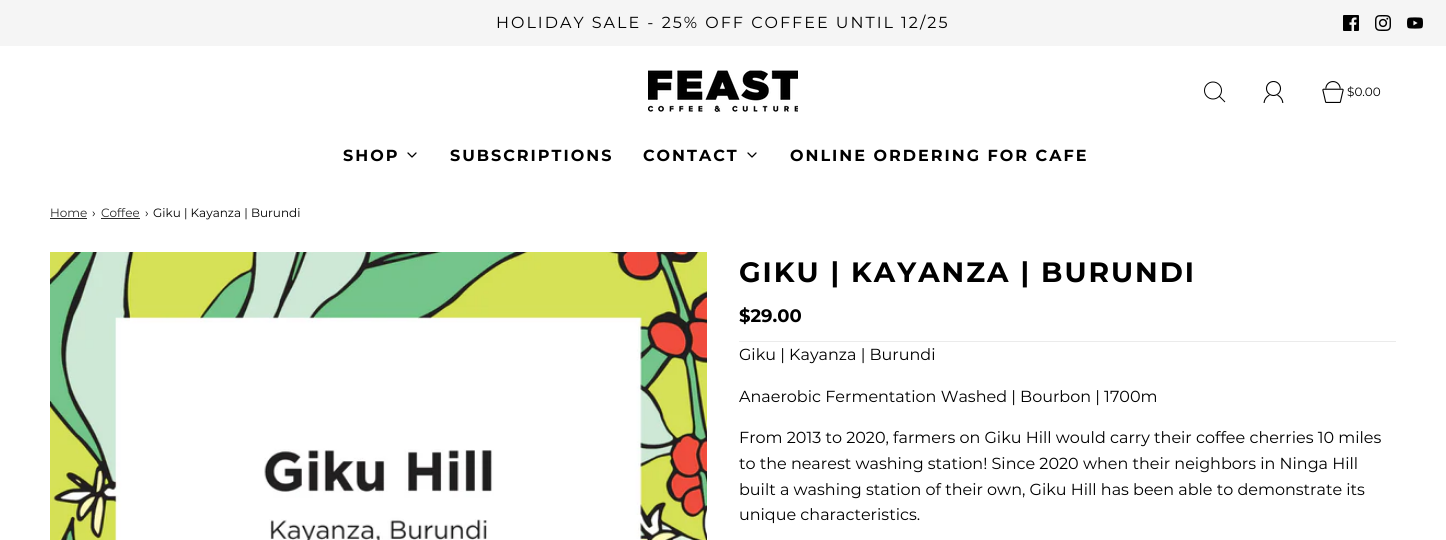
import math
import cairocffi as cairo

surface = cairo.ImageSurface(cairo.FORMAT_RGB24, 1446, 540)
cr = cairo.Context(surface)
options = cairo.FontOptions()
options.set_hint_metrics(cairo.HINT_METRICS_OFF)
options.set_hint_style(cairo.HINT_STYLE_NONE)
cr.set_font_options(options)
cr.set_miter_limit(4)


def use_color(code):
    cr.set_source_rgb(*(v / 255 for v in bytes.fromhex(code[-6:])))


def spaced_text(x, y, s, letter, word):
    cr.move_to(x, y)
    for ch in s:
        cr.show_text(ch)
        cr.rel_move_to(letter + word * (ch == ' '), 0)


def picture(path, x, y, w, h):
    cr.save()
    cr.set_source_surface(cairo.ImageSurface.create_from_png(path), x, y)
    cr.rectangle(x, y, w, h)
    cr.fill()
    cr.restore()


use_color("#ffffff")
cr.paint()
use_color("#f5f5f5")
cr.rectangle(0, 0, 1446, 46)
cr.fill()
cr.select_font_face("Montserrat")
cr.set_font_size(16)
use_color("#000000")
spaced_text(496, 28, "HOLIDAY SALE - 25% OFF COFFEE UNTIL 12/25", 2, 0)
picture("img1.png", 1343, 15, 16, 16)
picture("img2.png", 1375, 15, 16, 16)
picture("img3.png", 1407, 17, 16, 12)
picture("img4.png", 648, 70, 150, 42)
cr.arc(1213, 90.5, 8.5, 0, 2 * math.pi)
cr.set_line_width(1)
cr.stroke()
cr.new_path()
cr.move_to(1219, 96)
cr.line_to(1225, 102)
cr.stroke()
picture("img5.png", 1263, 81, 21, 22)
picture("img6.png", 1322, 81, 22, 22)
cr.set_font_size(12)
cr.move_to(1347, 96)
cr.show_text("$0.00")
cr.select_font_face("Montserrat", cairo.FONT_SLANT_NORMAL, cairo.FONT_WEIGHT_BOLD)
cr.set_font_size(16)
spaced_text(343, 161, "SHOP", 2, 0)
cr.new_path()
cr.move_to(408, 153)
cr.line_to(412, 157)
cr.line_to(416, 153)
cr.set_line_width(1.3)
cr.set_line_cap(cairo.LINE_CAP_ROUND)
cr.set_line_join(cairo.LINE_JOIN_ROUND)
cr.stroke()
spaced_text(450, 161, "SUBSCRIPTIONS", 2, 0)
spaced_text(643, 161, "CONTACT", 2, 0)
cr.new_path()
cr.move_to(748, 153)
cr.line_to(752, 157)
cr.line_to(756, 153)
cr.stroke()
spaced_text(790, 161, "ONLINE ORDERING FOR CAFE", 2, 0)
cr.select_font_face("Montserrat")
cr.set_font_size(12)
use_color("#292929")
cr.move_to(50, 217)
cr.show_text("Home")
cr.rectangle(50, 218, 37, 1)
cr.fill()
use_color("#000000")
cr.move_to(92, 217)
cr.show_text("›")
use_color("#292929")
cr.move_to(101, 217)
cr.show_text("Coffee")
cr.rectangle(101, 218, 39, 1)
cr.fill()
use_color("#000000")
cr.move_to(145, 217)
cr.show_text("›")
cr.move_to(153, 217)
cr.show_text("Giku | Kayanza | Burundi")
picture("img7.png", 50, 252, 657, 288)
cr.select_font_face("Montserrat", cairo.FONT_SLANT_NORMAL, cairo.FONT_WEIGHT_BOLD)
cr.set_font_size(28)
spaced_text(739, 282, "GIKU | KAYANZA | BURUNDI", 2, 0)
cr.set_font_size(18)
cr.move_to(739, 322)
cr.show_text("$29.00")
use_color("#ebebeb")
cr.rectangle(739, 341, 657, 1)
cr.fill()
cr.select_font_face("Montserrat")
cr.set_font_size(16)
use_color("#000000")
cr.move_to(739, 360)
cr.show_text("Giku | Kayanza | Burundi")
cr.move_to(739, 402)
cr.show_text("Anaerobic Fermentation Washed | Bourbon | 1700m")
cr.move_to(739, 443)
cr.show_text("From 2013 to 2020, farmers on Giku Hill would carry their coffee cherries 10 miles")
cr.move_to(739, 469)
cr.show_text("to the nearest washing station! Since 2020 when their neighbors in Ninga Hill")
cr.move_to(739, 495)
cr.show_text("built a washing station of their own, Giku Hill has been able to demonstrate its")
cr.move_to(739, 520)
cr.show_text("unique characteristics.")
surface.write_to_png("result.png")
